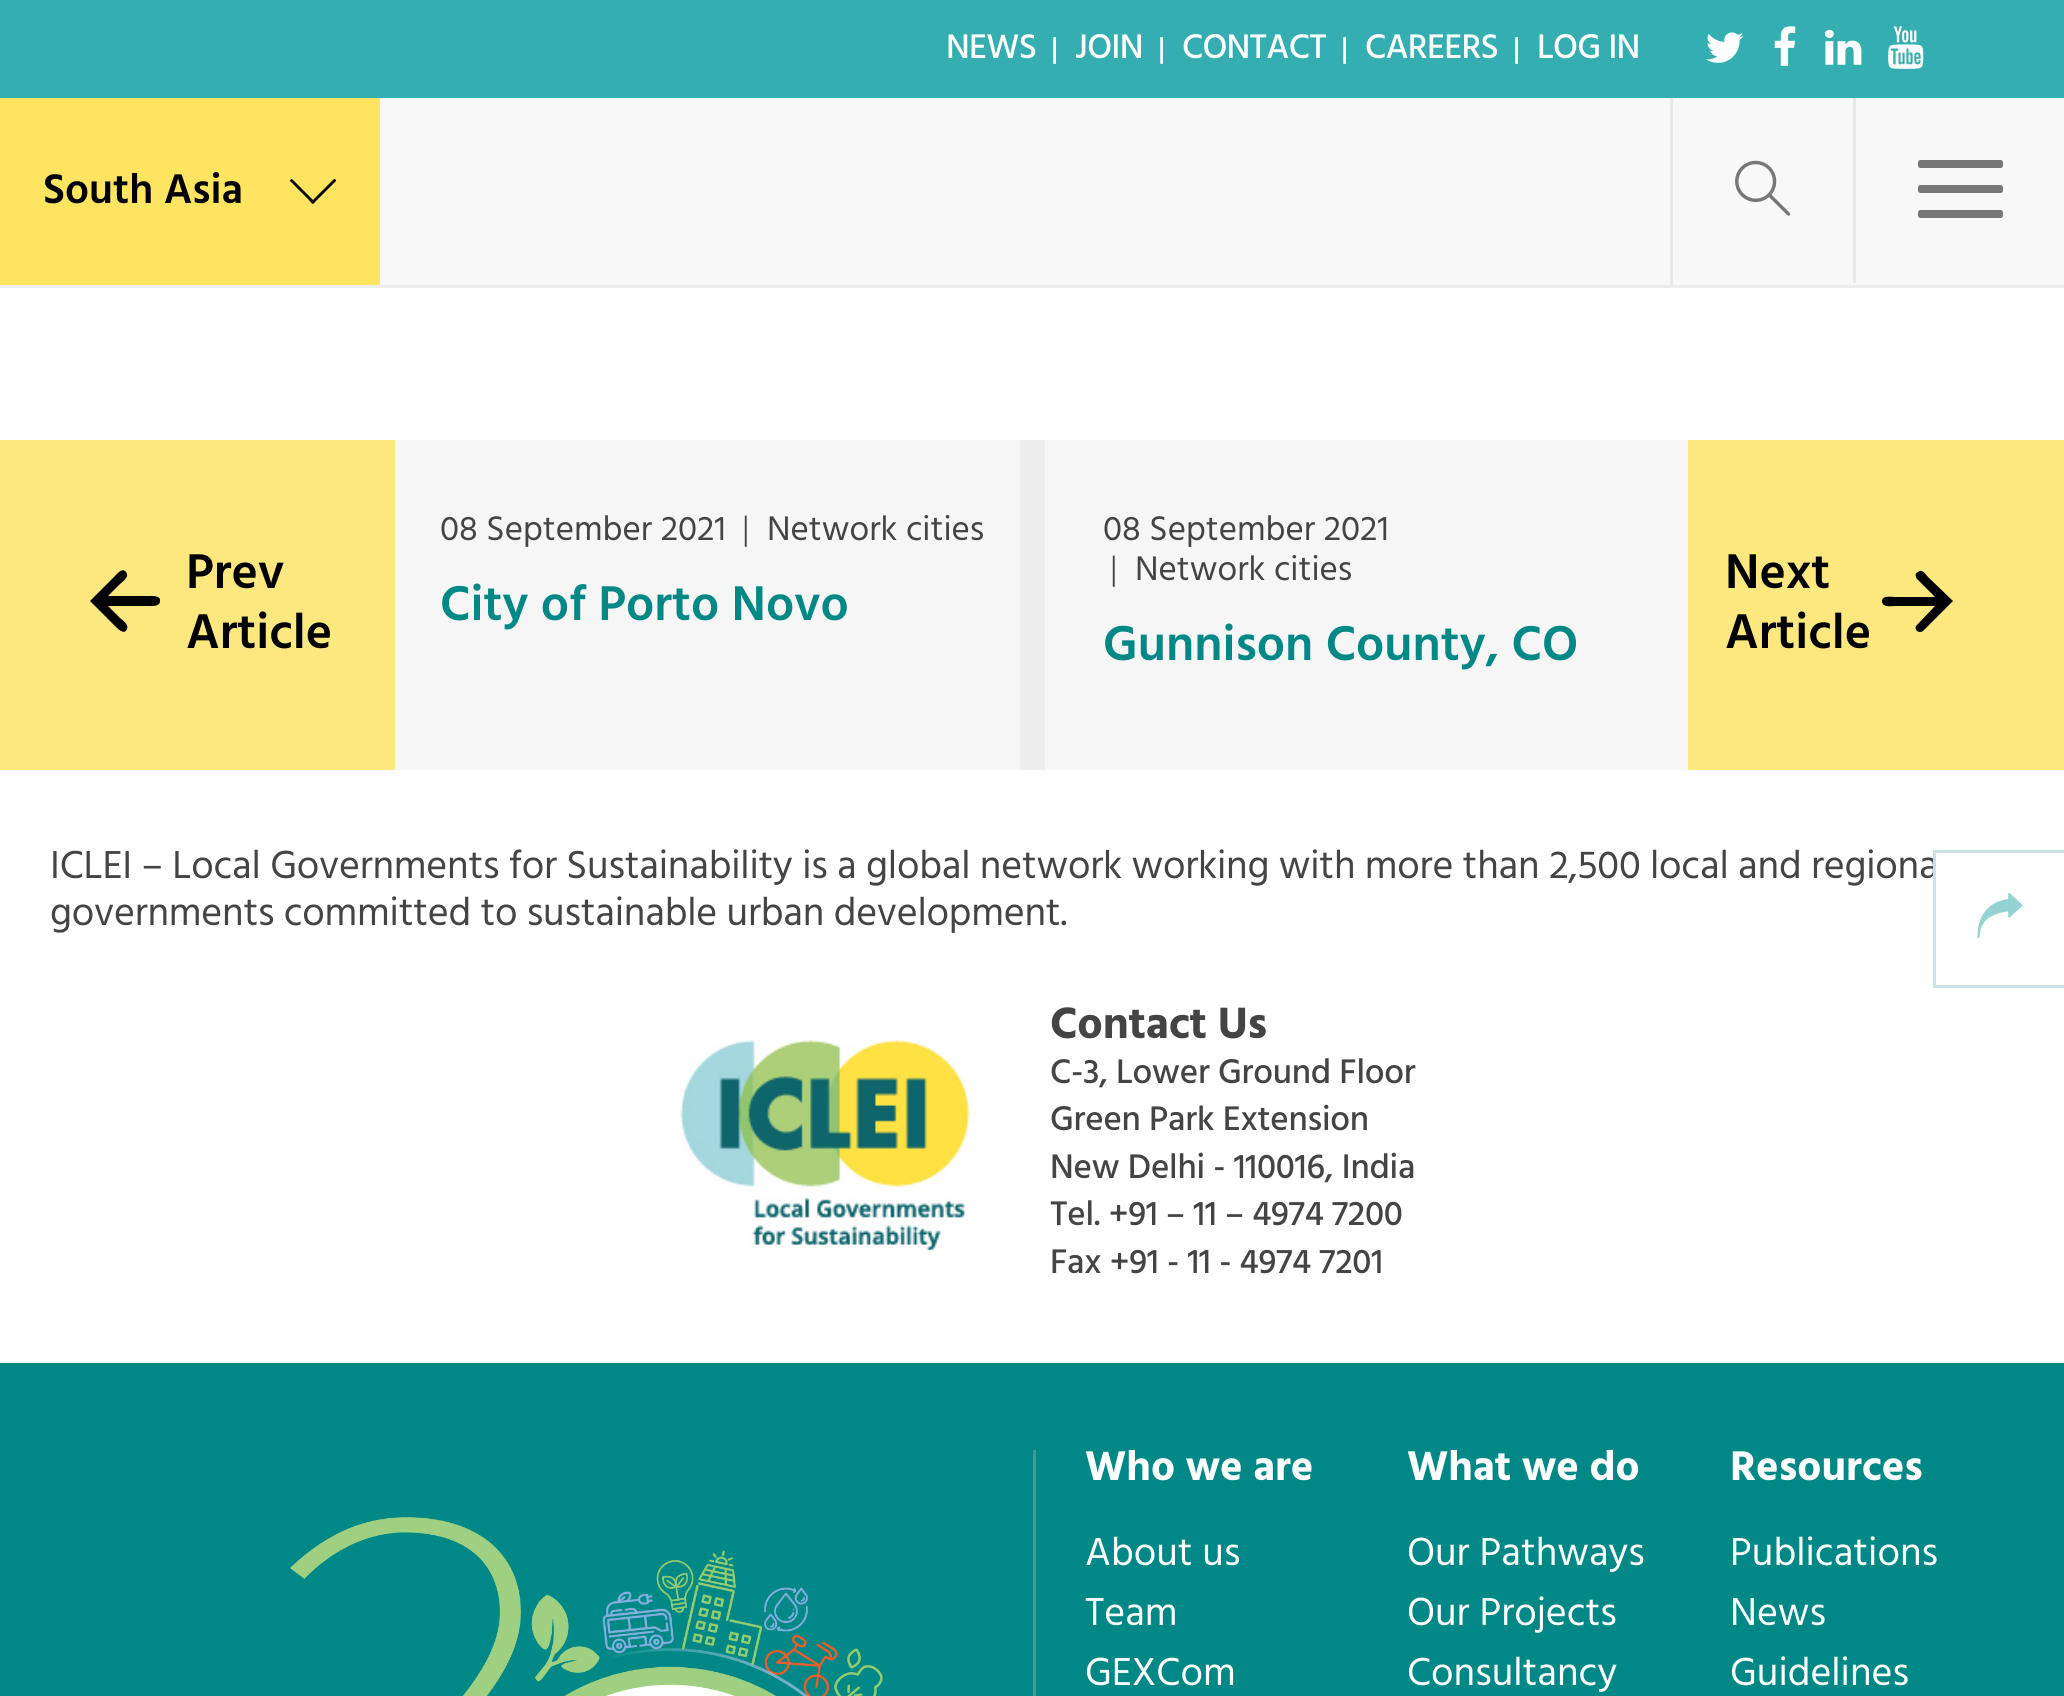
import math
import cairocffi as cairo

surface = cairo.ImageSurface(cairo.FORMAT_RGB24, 2064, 1696)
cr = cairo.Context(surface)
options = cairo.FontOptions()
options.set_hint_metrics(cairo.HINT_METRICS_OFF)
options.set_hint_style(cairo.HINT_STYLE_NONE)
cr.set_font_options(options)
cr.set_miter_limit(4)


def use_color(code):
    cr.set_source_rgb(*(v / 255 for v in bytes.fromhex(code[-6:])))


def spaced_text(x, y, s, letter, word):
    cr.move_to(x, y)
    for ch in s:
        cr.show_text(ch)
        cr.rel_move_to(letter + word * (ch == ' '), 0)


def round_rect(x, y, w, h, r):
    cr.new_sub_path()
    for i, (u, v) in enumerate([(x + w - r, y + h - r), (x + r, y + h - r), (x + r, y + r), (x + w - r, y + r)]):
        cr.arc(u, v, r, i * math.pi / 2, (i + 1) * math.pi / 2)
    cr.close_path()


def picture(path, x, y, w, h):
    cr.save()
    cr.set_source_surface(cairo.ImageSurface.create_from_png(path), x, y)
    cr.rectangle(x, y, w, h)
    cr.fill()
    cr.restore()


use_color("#ffffff")
cr.paint()
use_color("#34aeb1")
cr.rectangle(0, 0, 2064, 98)
cr.fill()
cr.select_font_face("Hind Medium")
cr.set_font_size(35)
use_color("#ffffff")
spaced_text(946, 58, "NEWS", -0.75, 0)
cr.set_font_size(30)
spaced_text(1051, 58, "|", -0.75, 0)
cr.set_font_size(35)
spaced_text(1075, 58, "JOIN", -0.75, 0)
cr.set_font_size(30)
spaced_text(1158, 58, "|", -0.75, 0)
cr.set_font_size(35)
spaced_text(1182, 58, "CONTACT", -0.75, 0)
cr.set_font_size(30)
spaced_text(1341, 58, "|", -0.75, 0)
cr.set_font_size(35)
spaced_text(1365, 58, "CAREERS", -0.75, 0)
cr.set_font_size(30)
spaced_text(1513, 58, "|", -0.75, 0)
cr.set_font_size(35)
spaced_text(1537, 58, "LOG IN", -0.75, 0)
picture("img1.png", 1706, 32, 38, 31)
picture("img2.png", 1774, 26, 22, 40)
picture("img3.png", 1825, 29, 37, 36)
picture("img4.png", 1888, 26, 36, 43)
use_color("#f8f8f8")
cr.rectangle(380, 98, 1684, 187)
cr.fill()
use_color("#ededed")
cr.rectangle(0, 285, 2064, 3)
cr.fill()
use_color("#ffe461")
cr.rectangle(0, 98, 380, 187)
cr.fill()
cr.select_font_face("Hind SemiBold")
cr.set_font_size(42.5)
use_color("#000000")
cr.move_to(43, 203)
cr.show_text("South Asia")
cr.new_path()
cr.move_to(334, 179)
cr.line_to(313, 200)
cr.line_to(292, 179)
cr.curve_to(291, 179, 290, 180, 290, 181)
cr.line_to(308, 199)
cr.curve_to(312, 203, 312, 206, 315, 202)
cr.line_to(336, 181)
cr.curve_to(336, 180, 336, 179, 334, 179)
cr.close_path()
cr.fill()
use_color("#e8e8e8")
cr.rectangle(1670, 98, 3, 187)
cr.fill()
picture("img5.png", 1735, 160, 56, 56)
cr.rectangle(1853, 98, 3, 185)
cr.fill()
use_color("#777777")
round_rect(1918, 160, 85, 8, 2.5)
cr.fill()
round_rect(1918, 185, 85, 8, 2.5)
cr.fill()
round_rect(1918, 210, 85, 8, 2.5)
cr.fill()
use_color("#fde87f")
cr.rectangle(0, 440, 395, 330)
cr.fill()
use_color("#000000")
cr.new_path()
cr.move_to(90, 601)
cr.line_to(114, 577)
cr.curve_to(117, 574, 122, 567, 126, 572)
cr.curve_to(130, 577, 122, 582, 120, 584)
cr.line_to(108, 596)
cr.line_to(148, 596)
cr.curve_to(151, 596, 161, 595, 160, 601)
cr.curve_to(160, 607, 151, 606, 148, 606)
cr.line_to(108, 606)
cr.line_to(120, 618)
cr.curve_to(122, 620, 129, 624, 127, 629)
cr.curve_to(124, 636, 117, 628, 114, 625)
cr.close_path()
cr.fill()
cr.set_font_size(50)
cr.move_to(186, 588)
cr.show_text("Prev")
cr.move_to(186, 648)
cr.show_text("Article")
use_color("#f6f6f6")
cr.rectangle(395, 440, 625, 330)
cr.fill()
cr.select_font_face("Hind")
cr.set_font_size(35)
use_color("#444444")
cr.move_to(440, 540)
cr.show_text("08 September 2021")
cr.select_font_face("Hind Light")
cr.move_to(742, 540)
cr.show_text("|")
cr.select_font_face("Hind")
cr.move_to(767, 540)
cr.show_text("Network cities")
cr.select_font_face("Hind SemiBold")
cr.set_font_size(50)
use_color("#008887")
cr.move_to(440, 620)
cr.show_text("City of Porto Novo")
use_color("#ededed")
cr.rectangle(1020, 440, 25, 330)
cr.fill()
use_color("#f6f6f6")
cr.rectangle(1045, 440, 643, 330)
cr.fill()
cr.select_font_face("Hind")
cr.set_font_size(35)
use_color("#444444")
cr.move_to(1103, 540)
cr.show_text("08 September 2021")
cr.select_font_face("Hind Light")
cr.move_to(1110, 580)
cr.show_text("|")
cr.select_font_face("Hind")
cr.move_to(1135, 580)
cr.show_text("Network cities")
cr.select_font_face("Hind SemiBold")
cr.set_font_size(50)
use_color("#008887")
cr.move_to(1103, 660)
cr.show_text("Gunnison County, CO")
use_color("#fde87f")
cr.rectangle(1688, 440, 376, 330)
cr.fill()
use_color("#000000")
cr.move_to(1725, 588)
cr.show_text("Next")
cr.move_to(1725, 648)
cr.show_text("Article")
cr.new_path()
cr.move_to(1882, 601)
cr.curve_to(1882, 595, 1892, 597, 1895, 597)
cr.line_to(1935, 597)
cr.line_to(1917, 579)
cr.curve_to(1915, 576, 1915, 573, 1918, 572)
cr.curve_to(1922, 568, 1926, 575, 1928, 577)
cr.line_to(1953, 601)
cr.line_to(1923, 631)
cr.curve_to(1919, 634, 1914, 630, 1916, 626)
cr.line_to(1935, 606)
cr.line_to(1895, 606)
cr.curve_to(1892, 606, 1882, 608, 1882, 601)
cr.close_path()
cr.fill()
cr.select_font_face("Hind")
cr.set_font_size(40)
use_color("#444444")
spaced_text(50, 878, "ICLEI – Local Governments for Sustainability is a global network working with more than 2,500 local and regiona", -0.22, 0)
cr.rectangle(1934.5, 851.5, 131, 135)
use_color("#cae2e3")
cr.set_line_width(3)
cr.stroke()
picture("img6.png", 1977, 893, 46, 45)
use_color("#008887")
cr.rectangle(0, 1363, 2064, 333)
cr.fill()
use_color("#444444")
spaced_text(50, 925, "governments committed to sustainable urban development.", -0.22, 0)
picture("img7.png", 680, 1034, 290, 218)
cr.select_font_face("Hind", cairo.FONT_SLANT_NORMAL, cairo.FONT_WEIGHT_BOLD)
cr.set_font_size(45)
spaced_text(1050, 1038, "Contact Us", -0.22, 0)
cr.select_font_face("Hind Medium")
cr.set_font_size(35)
spaced_text(1050, 1083, "C-3, Lower Ground Floor", -0.22, 0)
spaced_text(1050, 1130, "Green Park Extension", -0.22, 0)
spaced_text(1050, 1178, "New Delhi - 110016, India", -0.22, 0)
spaced_text(1050, 1225, "Tel. +91 – 11 – 4974 7200", -0.22, 0)
spaced_text(1050, 1273, "Fax +91 - 11 - 4974 7201", -0.22, 0)
picture("img8.png", 290, 1517, 593, 179)
use_color("#399b9a")
cr.rectangle(1033, 1450, 3, 246)
cr.fill()
cr.select_font_face("Hind", cairo.FONT_SLANT_NORMAL, cairo.FONT_WEIGHT_BOLD)
cr.set_font_size(42.5)
use_color("#ffffff")
cr.move_to(1085, 1480)
cr.show_text("Who we are")
cr.select_font_face("Hind")
cr.set_font_size(40)
cr.move_to(1085, 1565)
cr.show_text("About us")
cr.move_to(1085, 1625)
cr.show_text("Team")
cr.move_to(1085, 1685)
cr.show_text("GEXCom")
cr.select_font_face("Hind", cairo.FONT_SLANT_NORMAL, cairo.FONT_WEIGHT_BOLD)
cr.set_font_size(42.5)
cr.move_to(1407, 1480)
cr.show_text("What we do")
cr.select_font_face("Hind")
cr.set_font_size(40)
cr.move_to(1407, 1565)
cr.show_text("Our Pathways")
cr.move_to(1407, 1625)
cr.show_text("Our Projects")
cr.move_to(1407, 1685)
cr.show_text("Consultancy")
cr.select_font_face("Hind", cairo.FONT_SLANT_NORMAL, cairo.FONT_WEIGHT_BOLD)
cr.set_font_size(42.5)
cr.move_to(1730, 1480)
cr.show_text("Resources")
cr.select_font_face("Hind")
cr.set_font_size(40)
cr.move_to(1730, 1565)
cr.show_text("Publications")
cr.move_to(1730, 1625)
cr.show_text("News")
cr.move_to(1730, 1685)
cr.show_text("Guidelines")
surface.write_to_png("result.png")
